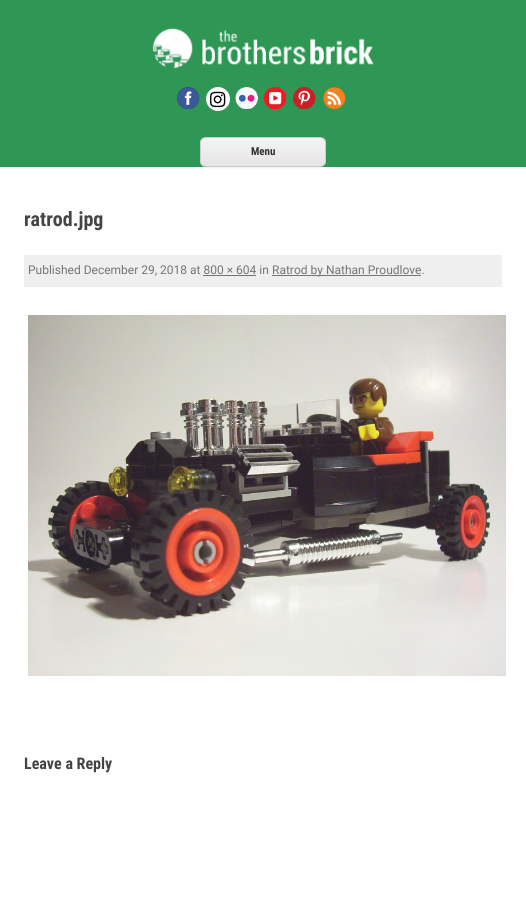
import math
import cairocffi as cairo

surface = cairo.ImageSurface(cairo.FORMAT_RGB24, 526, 909)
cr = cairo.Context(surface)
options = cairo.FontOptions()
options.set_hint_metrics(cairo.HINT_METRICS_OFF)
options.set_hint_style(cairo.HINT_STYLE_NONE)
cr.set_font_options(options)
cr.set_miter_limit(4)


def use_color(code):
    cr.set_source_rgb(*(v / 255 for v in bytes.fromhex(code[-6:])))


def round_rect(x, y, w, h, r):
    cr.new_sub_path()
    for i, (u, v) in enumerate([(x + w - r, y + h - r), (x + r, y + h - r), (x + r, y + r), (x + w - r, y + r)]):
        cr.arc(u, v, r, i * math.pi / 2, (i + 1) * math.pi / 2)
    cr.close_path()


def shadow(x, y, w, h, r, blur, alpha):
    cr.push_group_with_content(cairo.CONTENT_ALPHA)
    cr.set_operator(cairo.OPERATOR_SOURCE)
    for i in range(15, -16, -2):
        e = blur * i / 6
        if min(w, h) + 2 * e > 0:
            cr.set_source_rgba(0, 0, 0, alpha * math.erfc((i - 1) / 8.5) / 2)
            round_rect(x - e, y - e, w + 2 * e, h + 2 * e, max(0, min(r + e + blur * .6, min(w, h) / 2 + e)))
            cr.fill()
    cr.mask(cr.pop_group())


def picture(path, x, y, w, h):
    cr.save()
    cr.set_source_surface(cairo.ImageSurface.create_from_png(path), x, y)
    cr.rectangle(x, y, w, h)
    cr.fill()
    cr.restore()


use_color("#ffffff")
cr.paint()
use_color("#2e9755")
cr.rectangle(0, 0, 526, 167)
cr.fill()
picture("img1.png", 152, 28, 222, 41)
picture("img2.png", 177, 87, 23, 22)
use_color("#ffffff")
cr.arc(218, 99, 12, 0, 2 * math.pi)
cr.fill()
picture("img3.png", 210, 91, 16, 17)
picture("img4.png", 235, 87, 23, 22)
picture("img5.png", 263, 87, 24, 22)
picture("img6.png", 293, 87, 23, 22)
picture("img7.png", 323, 87, 23, 22)
use_color("#404040")
shadow(200, 138, 126, 30, 6, 1, 0.1)
cr.save()
round_rect(200, 137, 126, 30, 6)
cr.clip()
gradient = cairo.LinearGradient(263, 138, 263, 166)
gradient.add_color_stop_rgba(0, 0.957, 0.957, 0.957, 1)
gradient.add_color_stop_rgba(1, 0.898, 0.898, 0.898, 1)
cr.set_source(gradient)
cr.rectangle(200, 138, 126, 28)
cr.fill()
cr.restore()
round_rect(200.5, 137.5, 125, 29, 5.5)
use_color("#cccccc")
cr.set_line_width(1)
cr.stroke()
cr.select_font_face("Roboto Condensed", cairo.FONT_SLANT_NORMAL, cairo.FONT_WEIGHT_BOLD)
cr.set_font_size(11)
use_color("#333333")
cr.move_to(251, 155)
cr.show_text("Menu")
cr.set_font_size(20)
use_color("#444444")
cr.move_to(24, 226)
cr.show_text("ratrod.jpg")
use_color("#efefef")
cr.rectangle(24, 255, 478, 32)
cr.fill()
cr.select_font_face("Roboto")
cr.set_font_size(12)
use_color("#757575")
cr.move_to(28, 274)
cr.show_text("Published December 29, 2018 at 800 × 604 in")
cr.rectangle(272, 275, 149, 1)
cr.fill()
cr.move_to(272, 274)
cr.show_text("Ratrod by Nathan Proudlove.")
cr.rectangle(203, 275, 53, 1)
cr.fill()
picture("img8.png", 28, 315, 478, 361)
cr.select_font_face("Roboto Condensed", cairo.FONT_SLANT_NORMAL, cairo.FONT_WEIGHT_BOLD)
cr.set_font_size(16)
use_color("#444444")
cr.move_to(24, 769)
cr.show_text("Leave a Reply")
surface.write_to_png("result.png")
